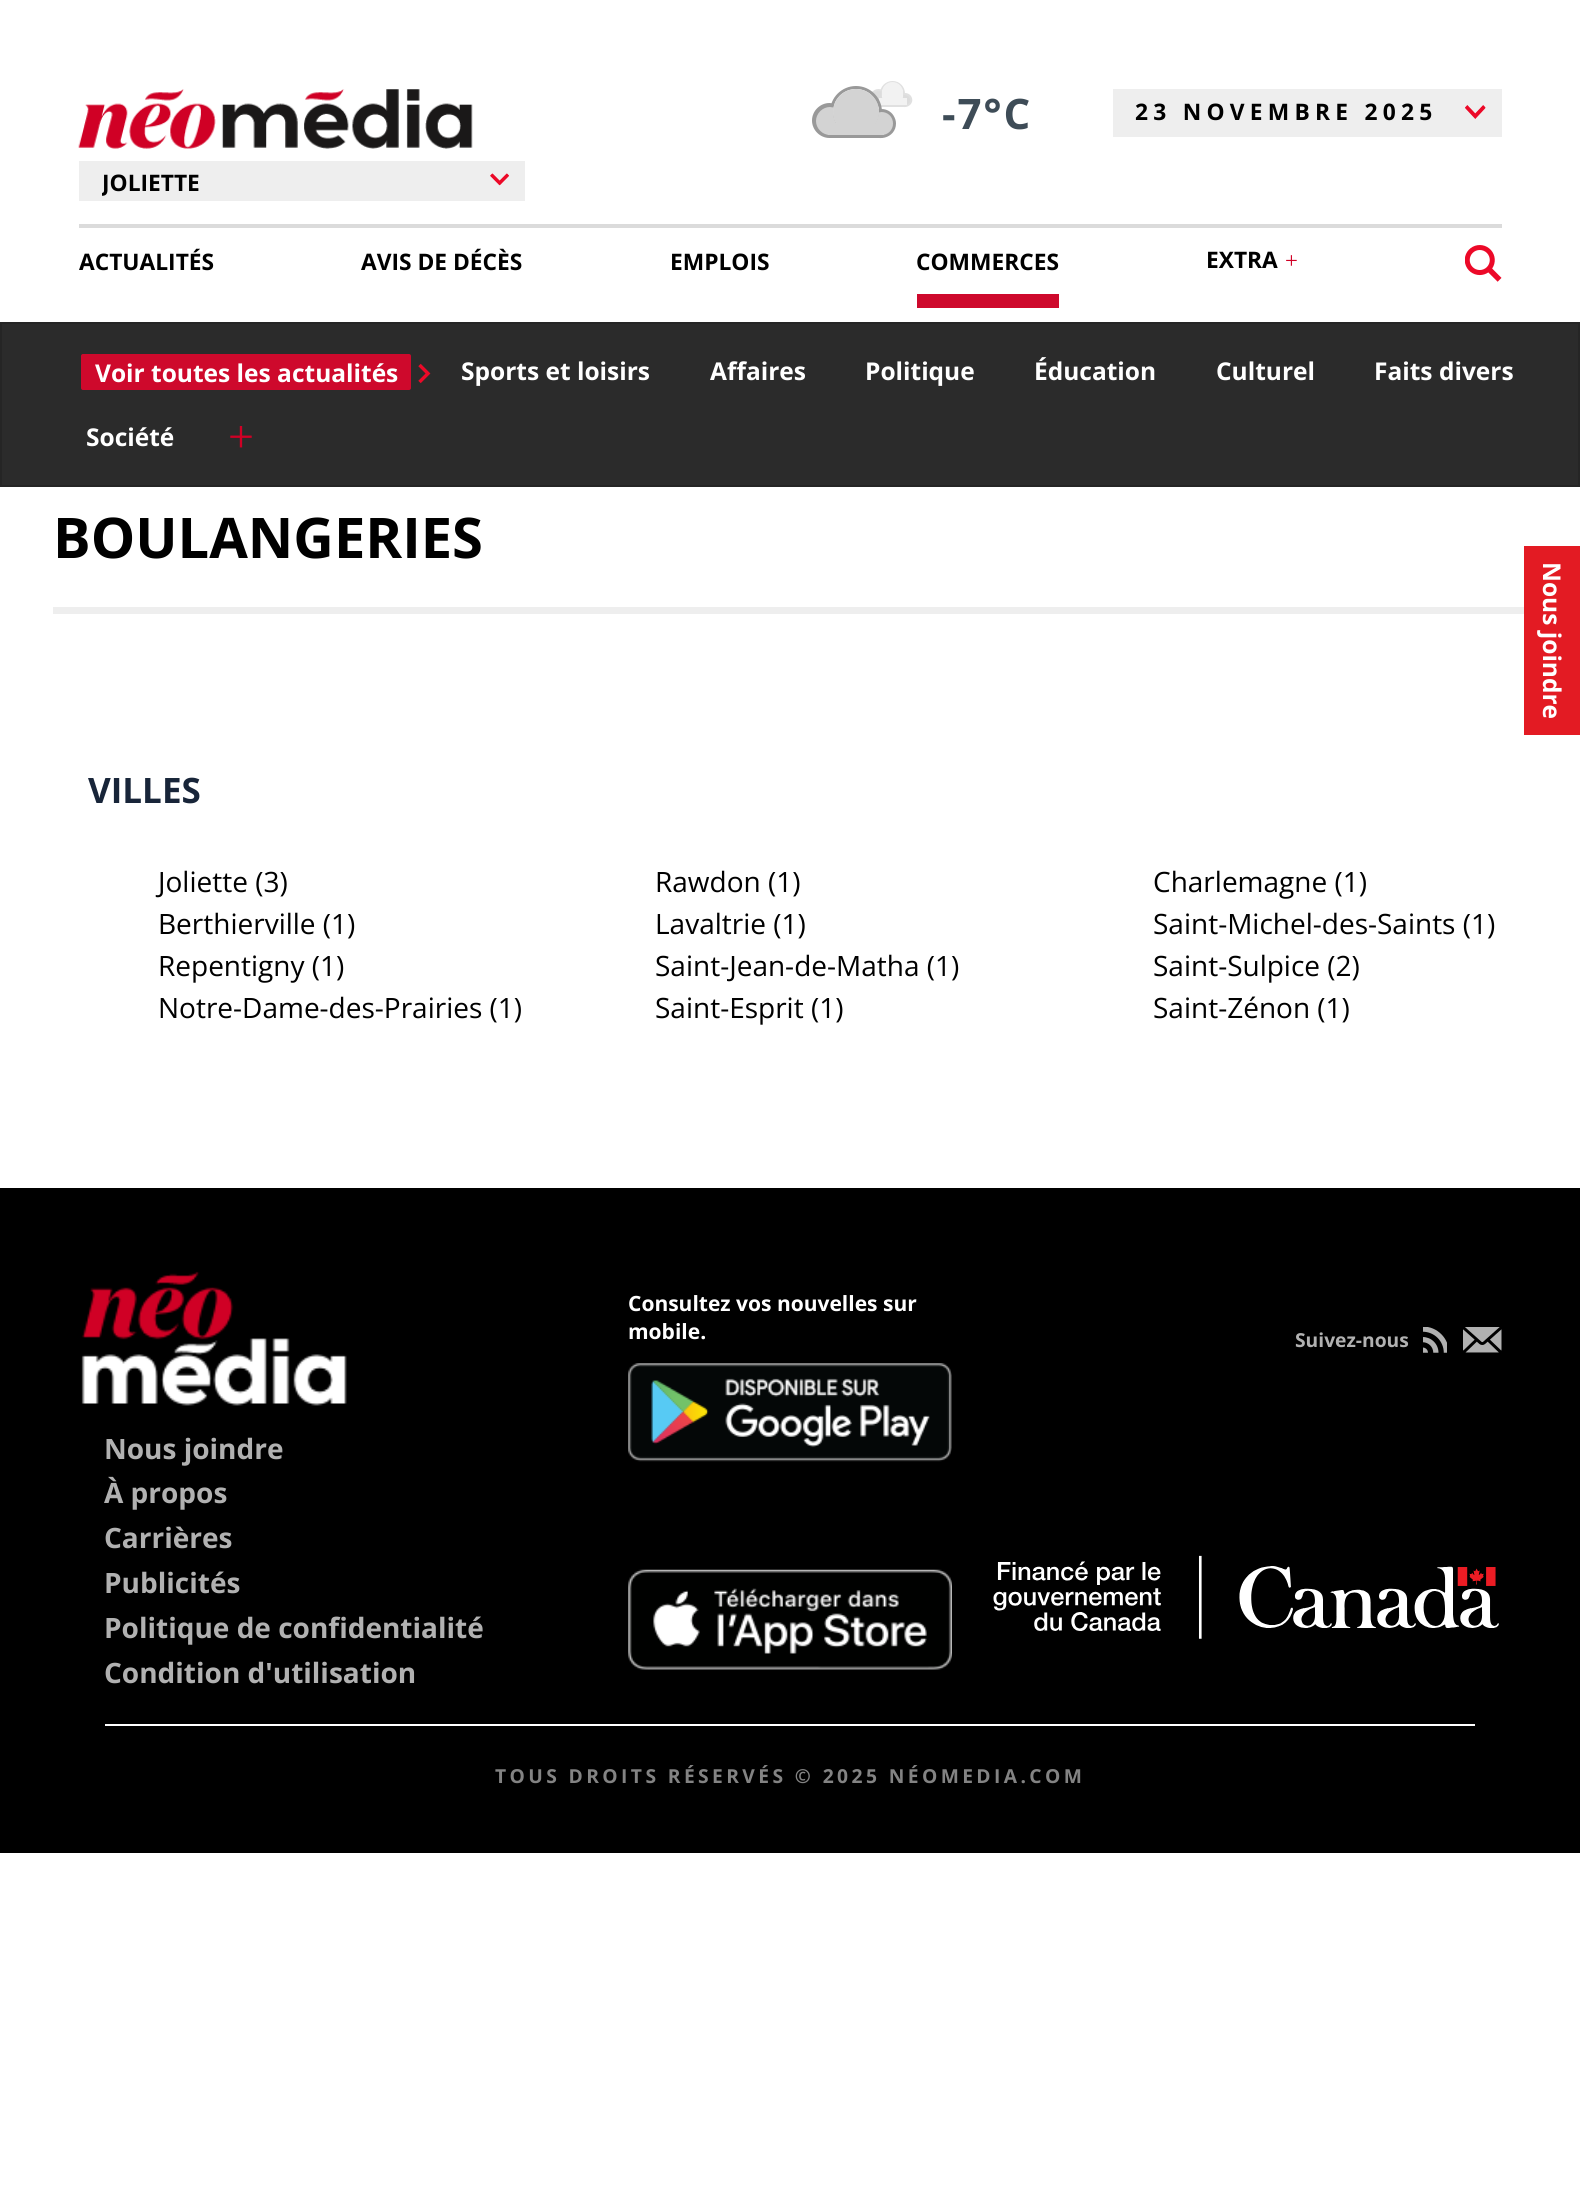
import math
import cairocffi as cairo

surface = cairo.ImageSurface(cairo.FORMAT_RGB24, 1580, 2198)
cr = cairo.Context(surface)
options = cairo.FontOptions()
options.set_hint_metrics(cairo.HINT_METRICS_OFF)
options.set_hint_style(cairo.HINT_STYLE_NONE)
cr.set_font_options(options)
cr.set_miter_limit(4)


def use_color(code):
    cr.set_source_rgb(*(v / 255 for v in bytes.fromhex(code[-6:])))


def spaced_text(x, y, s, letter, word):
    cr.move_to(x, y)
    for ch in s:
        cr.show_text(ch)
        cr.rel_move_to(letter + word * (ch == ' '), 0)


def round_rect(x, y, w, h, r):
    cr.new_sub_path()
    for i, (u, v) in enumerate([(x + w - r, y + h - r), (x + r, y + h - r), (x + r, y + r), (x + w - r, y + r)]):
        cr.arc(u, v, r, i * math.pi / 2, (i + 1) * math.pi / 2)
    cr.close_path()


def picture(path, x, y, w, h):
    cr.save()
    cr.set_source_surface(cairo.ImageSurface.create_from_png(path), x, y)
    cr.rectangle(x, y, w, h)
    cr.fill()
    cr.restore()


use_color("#ffffff")
cr.paint()
use_color("#e0e0e0")
cr.new_path()
cr.move_to(905, 93)
cr.line_to(904, 93)
cr.curve_to(904, 97, 902, 101, 898.5, 103)
cr.curve_to(903, 112, 916.5, 104.5, 911, 96)
cr.curve_to(909.5, 94, 907.5, 93, 905, 93)
cr.close_path()
cr.move_to(878.5, 89)
cr.curve_to(875.5, 89, 873, 90.5, 871.5, 92.5)
cr.curve_to(870.5, 94.5, 870, 96.5, 870, 98.5)
cr.curve_to(870.5, 107, 881.5, 110.5, 886, 102.5)
cr.curve_to(882, 100, 880, 94.5, 882, 89.5)
cr.close_path()
cr.fill()
round_rect(881, 82, 23, 24, 11.5)
cr.stroke()
use_color("#dcdcdc")
cr.new_path()
cr.move_to(905, 95)
cr.line_to(903.5, 95)
cr.curve_to(903.5, 98, 902, 100, 900.5, 102)
cr.curve_to(903, 108.5, 913.5, 103.5, 909, 97)
cr.curve_to(908, 96, 906.5, 95, 905, 95)
cr.close_path()
cr.fill()
cr.set_source_rgba(0.827, 0.827, 0.827, 0.3)
cr.new_path()
cr.move_to(879, 91)
cr.curve_to(877, 91, 875.5, 91.5, 874, 93)
cr.curve_to(867, 100.5, 879.5, 110, 885, 102)
cr.curve_to(882, 99, 880.5, 95, 881.5, 91.5)
cr.close_path()
cr.fill()
use_color("#f2f2f2")
round_rect(882, 82, 21, 23, 10.5)
cr.fill()
use_color("#e0e0e0")
cr.rectangle(880, 105, 25, 2)
cr.fill()
use_color("#f2f2f2")
cr.rectangle(879, 98, 28, 7)
cr.fill()
use_color("#999999")
cr.new_path()
cr.move_to(880.5, 109)
cr.line_to(878.5, 109)
cr.curve_to(879.5, 117.5, 875.5, 126.5, 868, 131)
cr.curve_to(875.5, 143.5, 896, 138.5, 896, 123.5)
cr.curve_to(896, 120.5, 895, 118, 893.5, 115.5)
cr.curve_to(891, 111.5, 886.5, 109, 881.5, 109)
cr.close_path()
cr.fill()
cr.new_path()
cr.move_to(829.5, 103)
cr.curve_to(820, 103, 812, 111, 812, 120.5)
cr.curve_to(812, 130, 820, 138, 829.5, 138)
cr.curve_to(835, 138, 840, 135.5, 843.5, 131)
cr.curve_to(834.5, 125.5, 830.5, 113.5, 834.5, 103.5)
cr.close_path()
cr.fill()
cr.arc(856, 112, 24.5, 0, 2 * math.pi)
cr.set_line_width(3)
cr.stroke()
use_color("#d3d3d3")
cr.new_path()
cr.move_to(881.5, 112)
cr.line_to(878.5, 112.5)
cr.curve_to(878.5, 119, 875.5, 124.5, 871, 128.5)
cr.curve_to(873, 132.5, 877, 135, 881.5, 135)
cr.curve_to(888, 135, 893, 130, 893, 123.5)
cr.curve_to(893, 117, 888, 112, 881.5, 112)
cr.close_path()
cr.fill()
cr.new_path()
cr.move_to(830, 107)
cr.curve_to(822.5, 107, 816, 113.5, 816, 121)
cr.curve_to(816, 128.5, 822.5, 135, 830, 135)
cr.curve_to(834.5, 135, 838.5, 133, 841, 129.5)
cr.curve_to(835, 124, 832, 115.5, 833.5, 107.5)
cr.close_path()
cr.fill()
cr.arc(856, 112, 23, 0, 2 * math.pi)
cr.fill()
use_color("#999999")
cr.rectangle(830, 135, 52, 3)
cr.fill()
use_color("#d3d3d3")
cr.rectangle(828, 124, 56, 11)
cr.fill()
cr.select_font_face("Open Sans", cairo.FONT_SLANT_NORMAL, cairo.FONT_WEIGHT_BOLD)
cr.set_font_size(42)
use_color("#3e4c57")
spaced_text(942, 129, "-7°C", 2, 0)
use_color("#eeeeee")
cr.rectangle(1113, 89, 389, 48)
cr.fill()
cr.set_font_size(22.75)
use_color("#000000")
spaced_text(1135, 120, "23 NOVEMBRE 2025", 5.25, 0)
picture("img1.png", 1465, 105, 21, 14)
picture("img2.png", 78, 89, 395, 60)
use_color("#eeeeee")
cr.rectangle(79, 161, 446, 40)
cr.fill()
cr.save()
cr.rectangle(102, 165, 400, 35)
cr.clip()
use_color("#000000")
cr.move_to(102, 191)
cr.show_text("JOLIETTE")
cr.restore()
picture("img3.png", 490, 173, 19, 13)
use_color("#dbdbdb")
cr.rectangle(79, 224, 1423, 4)
cr.fill()
picture("img4.png", 1465, 245, 37, 37)
use_color("#000000")
cr.move_to(79, 270)
cr.show_text("ACTUALITÉS")
use_color("#2b2b2b")
cr.rectangle(1, 323, 1578, 163)
cr.fill_preserve()
use_color("#252525")
cr.set_line_width(2)
cr.stroke()
use_color("#ce092c")
round_rect(81, 354, 330, 36, 2)
cr.fill()
cr.set_font_size(24.5)
use_color("#ffffff")
cr.move_to(95, 382)
cr.show_text("Voir toutes les actualités")
cr.new_path()
cr.move_to(419.5, 382)
cr.line_to(428, 373.5)
cr.line_to(419.5, 365)
use_color("#ec0928")
cr.set_line_width(3.4)
cr.stroke()
use_color("#ffffff")
cr.move_to(461, 380)
cr.show_text("Sports et loisirs")
cr.move_to(710, 380)
cr.show_text("Affaires")
cr.move_to(865, 380)
cr.show_text("Politique")
cr.move_to(1034, 380)
cr.show_text("Éducation")
cr.move_to(1216, 380)
cr.show_text("Culturel")
cr.move_to(1374, 380)
cr.show_text("Faits divers")
cr.move_to(86, 446)
cr.show_text("Société")
cr.select_font_face("Liberation Serif")
cr.set_font_size(46)
use_color("#d00025")
cr.move_to(228, 452)
cr.show_text("+")
cr.select_font_face("Open Sans", cairo.FONT_SLANT_NORMAL, cairo.FONT_WEIGHT_BOLD)
cr.set_font_size(22.75)
use_color("#000000")
cr.move_to(361, 270)
cr.show_text("AVIS DE DÉCÈS")
cr.move_to(670, 270)
cr.show_text("EMPLOIS")
use_color("#ce092c")
cr.rectangle(917, 294, 142, 14)
cr.fill()
use_color("#000000")
cr.move_to(916, 270)
cr.show_text("COMMERCES")
cr.move_to(1206, 268)
cr.show_text("EXTRA")
cr.select_font_face("Liberation Serif")
use_color("#d00025")
cr.move_to(1285, 268)
cr.show_text("+")
cr.select_font_face("Open Sans", cairo.FONT_SLANT_NORMAL, cairo.FONT_WEIGHT_BOLD)
cr.set_font_size(56)
use_color("#000000")
cr.move_to(53, 558)
cr.show_text("BOULANGERIES")
use_color("#eeeeee")
cr.rectangle(53, 607, 1475, 7)
cr.fill()
cr.set_font_size(35)
use_color("#182539")
cr.move_to(88, 803)
cr.show_text("VILLES")
cr.select_font_face("Open Sans")
cr.set_font_size(28)
use_color("#000000")
cr.move_to(158, 892)
cr.show_text("Joliette (3)")
cr.move_to(158, 934)
cr.show_text("Berthierville (1)")
cr.move_to(158, 976)
cr.show_text("Repentigny (1)")
cr.move_to(158, 1018)
cr.show_text("Notre-Dame-des-Prairies (1)")
cr.move_to(655, 892)
cr.show_text("Rawdon (1)")
cr.move_to(655, 934)
cr.show_text("Lavaltrie (1)")
cr.move_to(655, 976)
cr.show_text("Saint-Jean-de-Matha (1)")
cr.move_to(655, 1018)
cr.show_text("Saint-Esprit (1)")
cr.move_to(1153, 892)
cr.show_text("Charlemagne (1)")
cr.move_to(1153, 934)
cr.show_text("Saint-Michel-des-Saints (1)")
cr.move_to(1153, 976)
cr.show_text("Saint-Sulpice (2)")
cr.move_to(1153, 1018)
cr.show_text("Saint-Zénon (1)")
use_color("#e31b23")
cr.rectangle(1524, 546, 56, 189)
cr.fill()
cr.select_font_face("Open Sans", cairo.FONT_SLANT_NORMAL, cairo.FONT_WEIGHT_BOLD)
cr.set_font_size(24.5)
use_color("#ffffff")
cr.save()
cr.translate(1543, 562)
cr.rotate(90 * math.pi / 180)
cr.move_to(0, 0)
cr.show_text("Nous joindre")
cr.restore()
use_color("#000000")
cr.rectangle(0, 1188, 1580, 665)
cr.fill()
cr.set_font_size(21)
use_color("#ffffff")
cr.move_to(628, 1311)
cr.show_text("Consultez vos nouvelles sur")
cr.move_to(628, 1339)
cr.show_text("mobile.")
picture("img5.png", 628, 1363, 324, 99)
picture("img6.png", 628, 1569, 324, 101)
cr.set_font_size(19.25)
use_color("#b1b1b1")
cr.move_to(1295, 1347)
cr.show_text("Suivez-nous")
picture("img7.png", 1423, 1327, 24, 26)
picture("img8.png", 1463, 1327, 39, 26)
picture("img9.png", 993, 1555, 506, 84)
picture("img10.png", 81, 1271, 266, 135)
cr.set_font_size(28)
cr.move_to(104, 1459)
cr.show_text("Nous joindre")
cr.move_to(104, 1503)
cr.show_text("À propos")
cr.move_to(104, 1548)
cr.show_text("Carrières")
cr.move_to(104, 1593)
cr.show_text("Publicités")
cr.move_to(104, 1638)
cr.show_text("Politique de confidentialité")
cr.move_to(104, 1683)
cr.show_text("Condition d'utilisation")
use_color("#ffffff")
cr.rectangle(105, 1724, 1370, 2)
cr.fill()
cr.set_font_size(19.25)
use_color("#838383")
spaced_text(495, 1783, "TOUS DROITS RÉSERVÉS © 2025 NÉOMEDIA.COM", 3.4, 0)
surface.write_to_png("result.png")
